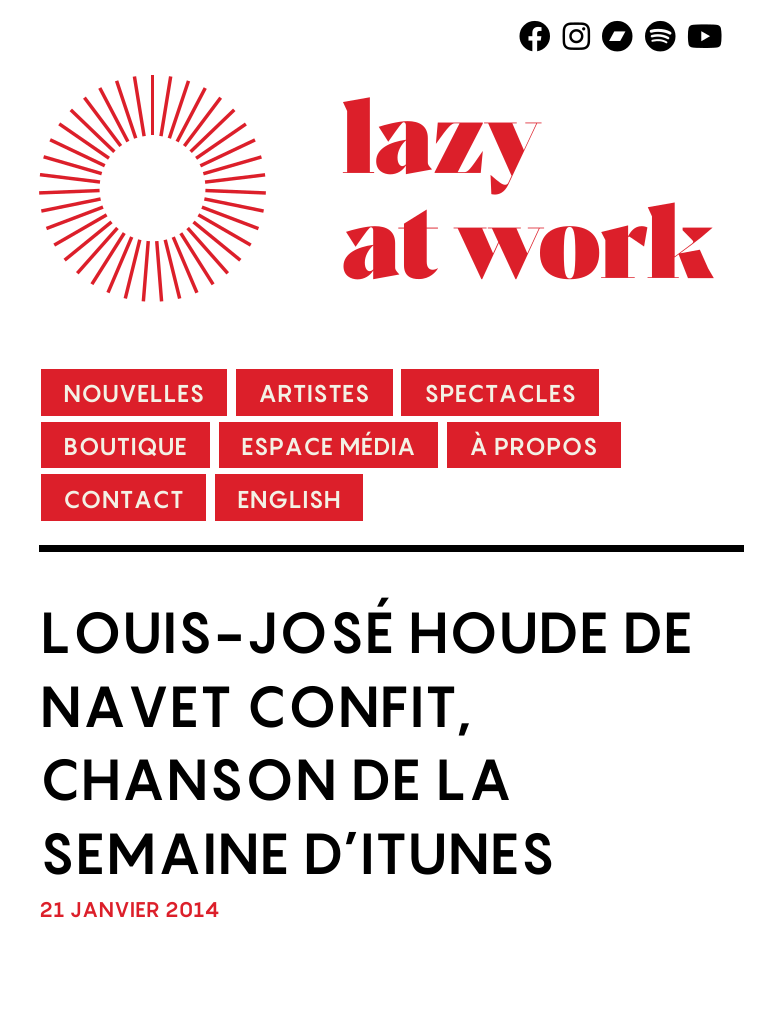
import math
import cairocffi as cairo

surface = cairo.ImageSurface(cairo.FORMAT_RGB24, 782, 1015)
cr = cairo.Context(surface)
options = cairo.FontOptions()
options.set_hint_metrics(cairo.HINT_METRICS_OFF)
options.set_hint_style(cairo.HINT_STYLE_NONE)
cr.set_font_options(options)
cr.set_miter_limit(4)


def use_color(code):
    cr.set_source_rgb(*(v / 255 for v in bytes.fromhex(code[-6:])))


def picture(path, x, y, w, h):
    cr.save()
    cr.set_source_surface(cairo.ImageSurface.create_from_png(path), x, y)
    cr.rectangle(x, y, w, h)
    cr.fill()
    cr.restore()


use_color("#ffffff")
cr.paint()
picture("img1.png", 519, 20, 31, 32)
picture("img2.png", 562, 22, 29, 28)
picture("img3.png", 602, 20, 31, 32)
picture("img4.png", 645, 20, 31, 32)
picture("img5.png", 687, 24, 35, 24)
picture("img6.png", 39, 75, 675, 227)
use_color("#dc1f2a")
cr.rectangle(41, 369, 186, 47)
cr.fill()
cr.select_font_face("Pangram", cairo.FONT_SLANT_NORMAL, cairo.FONT_WEIGHT_BOLD)
cr.set_font_size(24)
use_color("#f3f1e5")
cr.move_to(63, 402)
cr.show_text("NOUVELLES")
use_color("#dc1f2a")
cr.rectangle(236, 369, 157, 47)
cr.fill()
use_color("#f3f1e5")
cr.move_to(258, 402)
cr.show_text("ARTISTES")
use_color("#dc1f2a")
cr.rectangle(401, 369, 198, 47)
cr.fill()
use_color("#f3f1e5")
cr.move_to(424, 402)
cr.show_text("SPECTACLES")
use_color("#dc1f2a")
cr.rectangle(41, 422, 169, 46)
cr.fill()
use_color("#f3f1e5")
cr.move_to(63, 455)
cr.show_text("BOUTIQUE")
use_color("#dc1f2a")
cr.rectangle(219, 422, 219, 46)
cr.fill()
use_color("#f3f1e5")
cr.move_to(241, 455)
cr.show_text("ESPACE MÉDIA")
use_color("#dc1f2a")
cr.rectangle(447, 422, 174, 46)
cr.fill()
use_color("#f3f1e5")
cr.move_to(469, 455)
cr.show_text("À PROPOS")
use_color("#dc1f2a")
cr.rectangle(41, 474, 165, 47)
cr.fill()
use_color("#f3f1e5")
cr.move_to(63, 508)
cr.show_text("CONTACT")
use_color("#dc1f2a")
cr.rectangle(215, 474, 148, 47)
cr.fill()
use_color("#f3f1e5")
cr.move_to(237, 508)
cr.show_text("ENGLISH")
use_color("#000000")
cr.rectangle(39, 545, 705, 7)
cr.fill()
cr.set_font_size(57)
cr.move_to(39, 653)
cr.show_text("LOUIS-JOSÉ HOUDE DE")
cr.move_to(39, 727)
cr.show_text("NAVET CONFIT,")
cr.move_to(39, 800)
cr.show_text("CHANSON DE LA")
cr.move_to(39, 874)
cr.show_text("SEMAINE D’ITUNES")
cr.set_font_size(21)
use_color("#dc1f2a")
cr.move_to(39, 917)
cr.show_text("21 JANVIER 2014")
surface.write_to_png("result.png")
